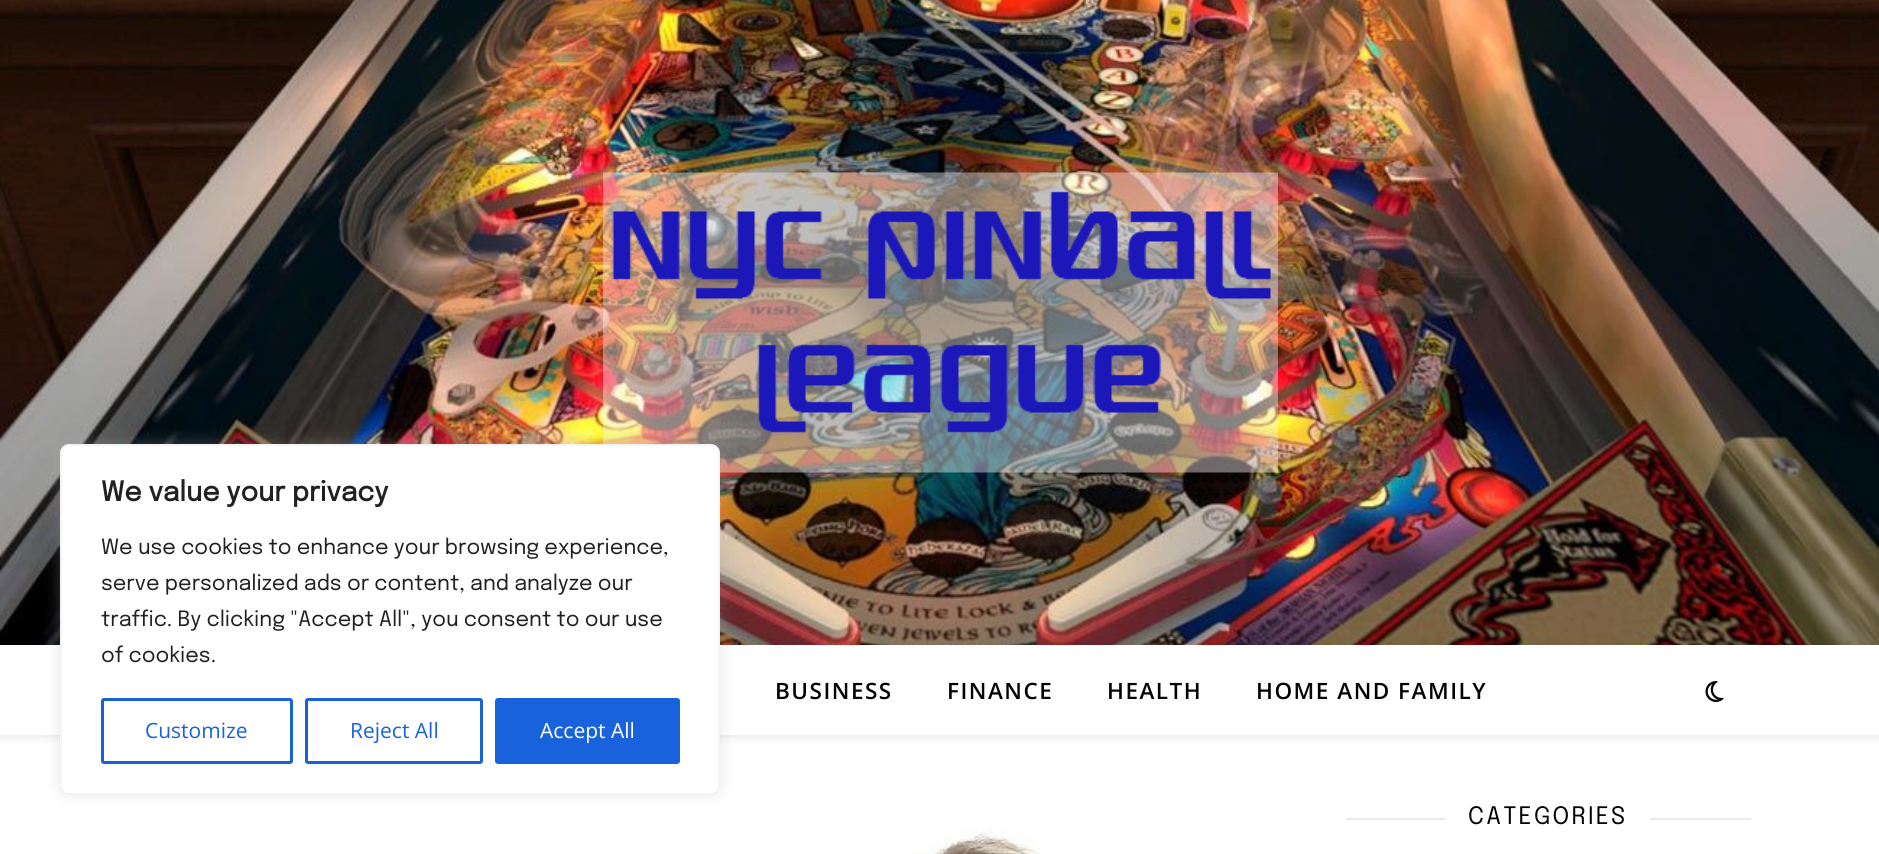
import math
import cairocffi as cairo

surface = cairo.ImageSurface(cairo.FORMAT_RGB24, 1879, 854)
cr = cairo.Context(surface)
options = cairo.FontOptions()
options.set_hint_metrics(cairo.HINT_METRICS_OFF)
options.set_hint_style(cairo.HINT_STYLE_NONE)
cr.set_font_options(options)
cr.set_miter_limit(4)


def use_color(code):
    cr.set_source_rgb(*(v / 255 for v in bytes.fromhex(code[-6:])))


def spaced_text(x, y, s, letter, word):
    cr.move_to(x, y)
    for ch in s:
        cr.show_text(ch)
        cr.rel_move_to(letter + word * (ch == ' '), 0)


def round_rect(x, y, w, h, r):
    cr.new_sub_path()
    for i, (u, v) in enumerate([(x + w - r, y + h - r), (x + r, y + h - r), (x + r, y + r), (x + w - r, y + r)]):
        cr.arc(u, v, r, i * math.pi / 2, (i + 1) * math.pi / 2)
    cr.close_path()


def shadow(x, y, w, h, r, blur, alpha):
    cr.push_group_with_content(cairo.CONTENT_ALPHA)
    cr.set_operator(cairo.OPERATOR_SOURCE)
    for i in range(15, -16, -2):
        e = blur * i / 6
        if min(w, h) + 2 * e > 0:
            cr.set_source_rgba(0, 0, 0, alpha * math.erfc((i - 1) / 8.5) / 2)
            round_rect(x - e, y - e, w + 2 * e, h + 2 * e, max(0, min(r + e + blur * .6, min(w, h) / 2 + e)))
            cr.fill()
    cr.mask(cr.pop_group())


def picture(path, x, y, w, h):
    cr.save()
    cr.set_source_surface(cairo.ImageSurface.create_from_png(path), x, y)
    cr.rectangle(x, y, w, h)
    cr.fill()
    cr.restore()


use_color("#ffffff")
cr.paint()
picture("img1.png", 0, 0, 1879, 645)
picture("img2.png", 603, 172, 675, 301)
use_color("#acabab")
shadow(60, 443, 660, 351, 9, 7.5, 0.3)
cr.save()
cr.set_fill_rule(cairo.FILL_RULE_EVEN_ODD)
cr.new_path()
cr.move_to(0, 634)
cr.line_to(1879, 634)
cr.line_to(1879, 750)
cr.line_to(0, 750)
cr.close_path()
cr.move_to(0, 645)
cr.line_to(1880, 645)
cr.line_to(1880, 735)
cr.line_to(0, 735)
cr.close_path()
cr.clip()
use_color("#000000")
shadow(0, 647, 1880, 90, 0, 4, 0.1)
cr.restore()
use_color("#ffffff")
round_rect(61, 445, 658, 349, 8)
cr.fill_preserve()
use_color("#f4f4f4")
cr.stroke()
cr.select_font_face("Epilogue", cairo.FONT_SLANT_NORMAL, cairo.FONT_WEIGHT_BOLD)
cr.set_font_size(27)
use_color("#212121")
cr.move_to(101, 501)
cr.show_text("We value your privacy")
cr.select_font_face("Epilogue")
cr.set_font_size(21)
cr.move_to(101, 554)
cr.show_text("We use cookies to enhance your browsing experience,")
cr.move_to(101, 590)
cr.show_text("serve personalized ads or content, and analyze our")
cr.move_to(101, 626)
cr.show_text("traffic. By clicking \"Accept All\", you consent to our use")
cr.move_to(101, 662)
cr.show_text("of cookies.")
round_rect(102.5, 699.5, 189, 63, 1.5)
use_color("#1863dc")
cr.set_line_width(3)
cr.stroke()
cr.select_font_face("Open Sans")
cr.move_to(145, 738)
cr.show_text("Customize")
round_rect(306.5, 699.5, 175, 63, 1.5)
cr.stroke()
cr.move_to(350, 738)
cr.show_text("Reject All")
round_rect(496.5, 699.5, 182, 63, 1.5)
cr.fill_preserve()
cr.stroke()
use_color("#ffffff")
cr.move_to(540, 738)
cr.show_text("Accept All")
cr.select_font_face("Open Sans SemiBold")
cr.set_font_size(22.5)
use_color("#030303")
spaced_text(775, 699, "BUSINESS", 1.5, 0)
spaced_text(947, 699, "FINANCE", 1.5, 0)
spaced_text(1107, 699, "HEALTH", 1.5, 0)
spaced_text(1256, 699, "HOME AND FAMILY", 1.5, 0)
picture("img3.png", 1705, 681, 19, 21)
use_color("#e8e8e8")
cr.rectangle(1346, 818, 99, 2)
cr.fill()
cr.select_font_face("Epilogue")
cr.set_font_size(24)
use_color("#030303")
spaced_text(1468, 824, "CATEGORIES", 2.25, 0)
use_color("#e8e8e8")
cr.rectangle(1650, 818, 101, 2)
cr.fill()
picture("img4.png", 912, 828, 129, 26)
surface.write_to_png("result.png")
